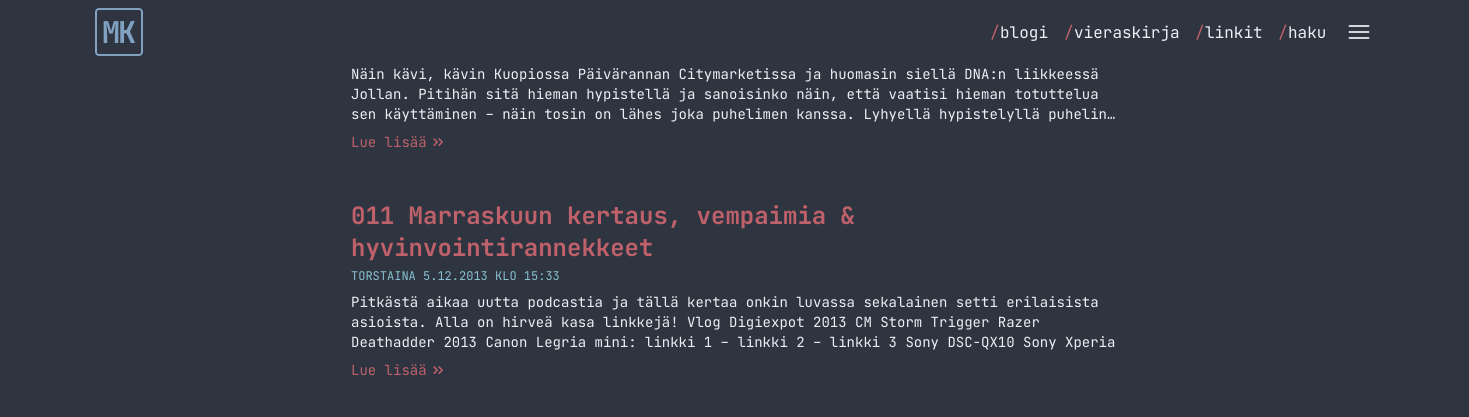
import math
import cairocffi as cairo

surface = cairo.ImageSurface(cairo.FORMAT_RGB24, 1469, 417)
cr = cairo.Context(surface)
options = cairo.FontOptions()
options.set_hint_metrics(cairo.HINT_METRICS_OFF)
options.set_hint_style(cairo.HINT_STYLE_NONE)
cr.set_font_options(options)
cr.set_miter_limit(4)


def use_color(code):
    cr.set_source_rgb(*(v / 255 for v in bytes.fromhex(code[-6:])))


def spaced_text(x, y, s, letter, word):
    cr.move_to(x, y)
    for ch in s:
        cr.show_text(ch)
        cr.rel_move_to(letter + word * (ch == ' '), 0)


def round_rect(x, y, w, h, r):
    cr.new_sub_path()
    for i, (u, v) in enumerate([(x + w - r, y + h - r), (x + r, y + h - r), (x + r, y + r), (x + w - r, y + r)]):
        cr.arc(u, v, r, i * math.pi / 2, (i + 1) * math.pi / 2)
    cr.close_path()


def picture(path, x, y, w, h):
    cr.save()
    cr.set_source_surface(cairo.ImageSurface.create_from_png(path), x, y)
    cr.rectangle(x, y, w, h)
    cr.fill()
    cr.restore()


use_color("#2e3440")
cr.paint()
round_rect(96, 9, 46, 46, 3)
use_color("#81a1c1")
cr.stroke()
cr.select_font_face("JetBrains Mono", cairo.FONT_SLANT_NORMAL, cairo.FONT_WEIGHT_BOLD)
cr.set_font_size(30)
spaced_text(102, 43, "MK", -2, 0)
cr.select_font_face("JetBrains Mono")
cr.set_font_size(16)
use_color("#bf616a")
cr.move_to(990, 38)
cr.show_text("/")
use_color("#eceff4")
cr.move_to(1000, 38)
cr.show_text("blogi")
use_color("#bf616a")
cr.move_to(1064, 38)
cr.show_text("/")
use_color("#eceff4")
cr.move_to(1074, 38)
cr.show_text("vieraskirja")
use_color("#bf616a")
cr.move_to(1195, 38)
cr.show_text("/")
use_color("#eceff4")
cr.move_to(1205, 38)
cr.show_text("linkit")
use_color("#bf616a")
cr.move_to(1278, 38)
cr.show_text("/")
use_color("#eceff4")
cr.move_to(1288, 38)
cr.show_text("haku")
cr.new_path()
cr.move_to(1349.5, 26)
cr.line_to(1368.5, 26)
cr.move_to(1349.5, 32)
cr.line_to(1368.5, 32)
cr.move_to(1349.5, 38)
cr.line_to(1368.5, 38)
cr.set_line_width(1.8)
cr.set_line_cap(cairo.LINE_CAP_ROUND)
cr.set_line_join(cairo.LINE_JOIN_ROUND)
cr.stroke()
cr.set_font_size(14)
cr.move_to(351, 79)
cr.show_text("Näin kävi, kävin Kuopiossa Päivärannan Citymarketissa ja huomasin siellä DNA:n liikkeessä")
cr.move_to(351, 99)
cr.show_text("Jollan. Pitihän sitä hieman hypistellä ja sanoisinko näin, että vaatisi hieman totuttelua")
cr.move_to(351, 119)
cr.show_text("sen käyttäminen – näin tosin on lähes joka puhelimen kanssa. Lyhyellä hypistelyllä puhelin…")
use_color("#bf616a")
cr.move_to(351, 147)
cr.show_text("Lue lisää")
picture("img1.png", 433, 138, 10, 8)
cr.select_font_face("JetBrains Mono", cairo.FONT_SLANT_NORMAL, cairo.FONT_WEIGHT_BOLD)
cr.set_font_size(24)
cr.move_to(351, 224)
cr.show_text("011 Marraskuun kertaus, vempaimia &")
cr.move_to(351, 256)
cr.show_text("hyvinvointirannekkeet")
cr.select_font_face("JetBrains Mono")
cr.set_font_size(12)
use_color("#88c0d0")
cr.move_to(351, 280)
cr.show_text("TORSTAINA 5.12.2013 KLO 15:33")
cr.set_font_size(14)
use_color("#eceff4")
cr.move_to(351, 307)
cr.show_text("Pitkästä aikaa uutta podcastia ja tällä kertaa onkin luvassa sekalainen setti erilaisista")
cr.move_to(351, 327)
cr.show_text("asioista. Alla on hirveä kasa linkkejä! Vlog Digiexpot 2013 CM Storm Trigger Razer")
cr.move_to(351, 347)
cr.show_text("Deathadder 2013 Canon Legria mini: linkki 1 – linkki 2 – linkki 3 Sony DSC-QX10 Sony Xperia")
use_color("#bf616a")
cr.move_to(351, 375)
cr.show_text("Lue lisää")
picture("img1.png", 433, 366, 10, 8)
surface.write_to_png("result.png")
